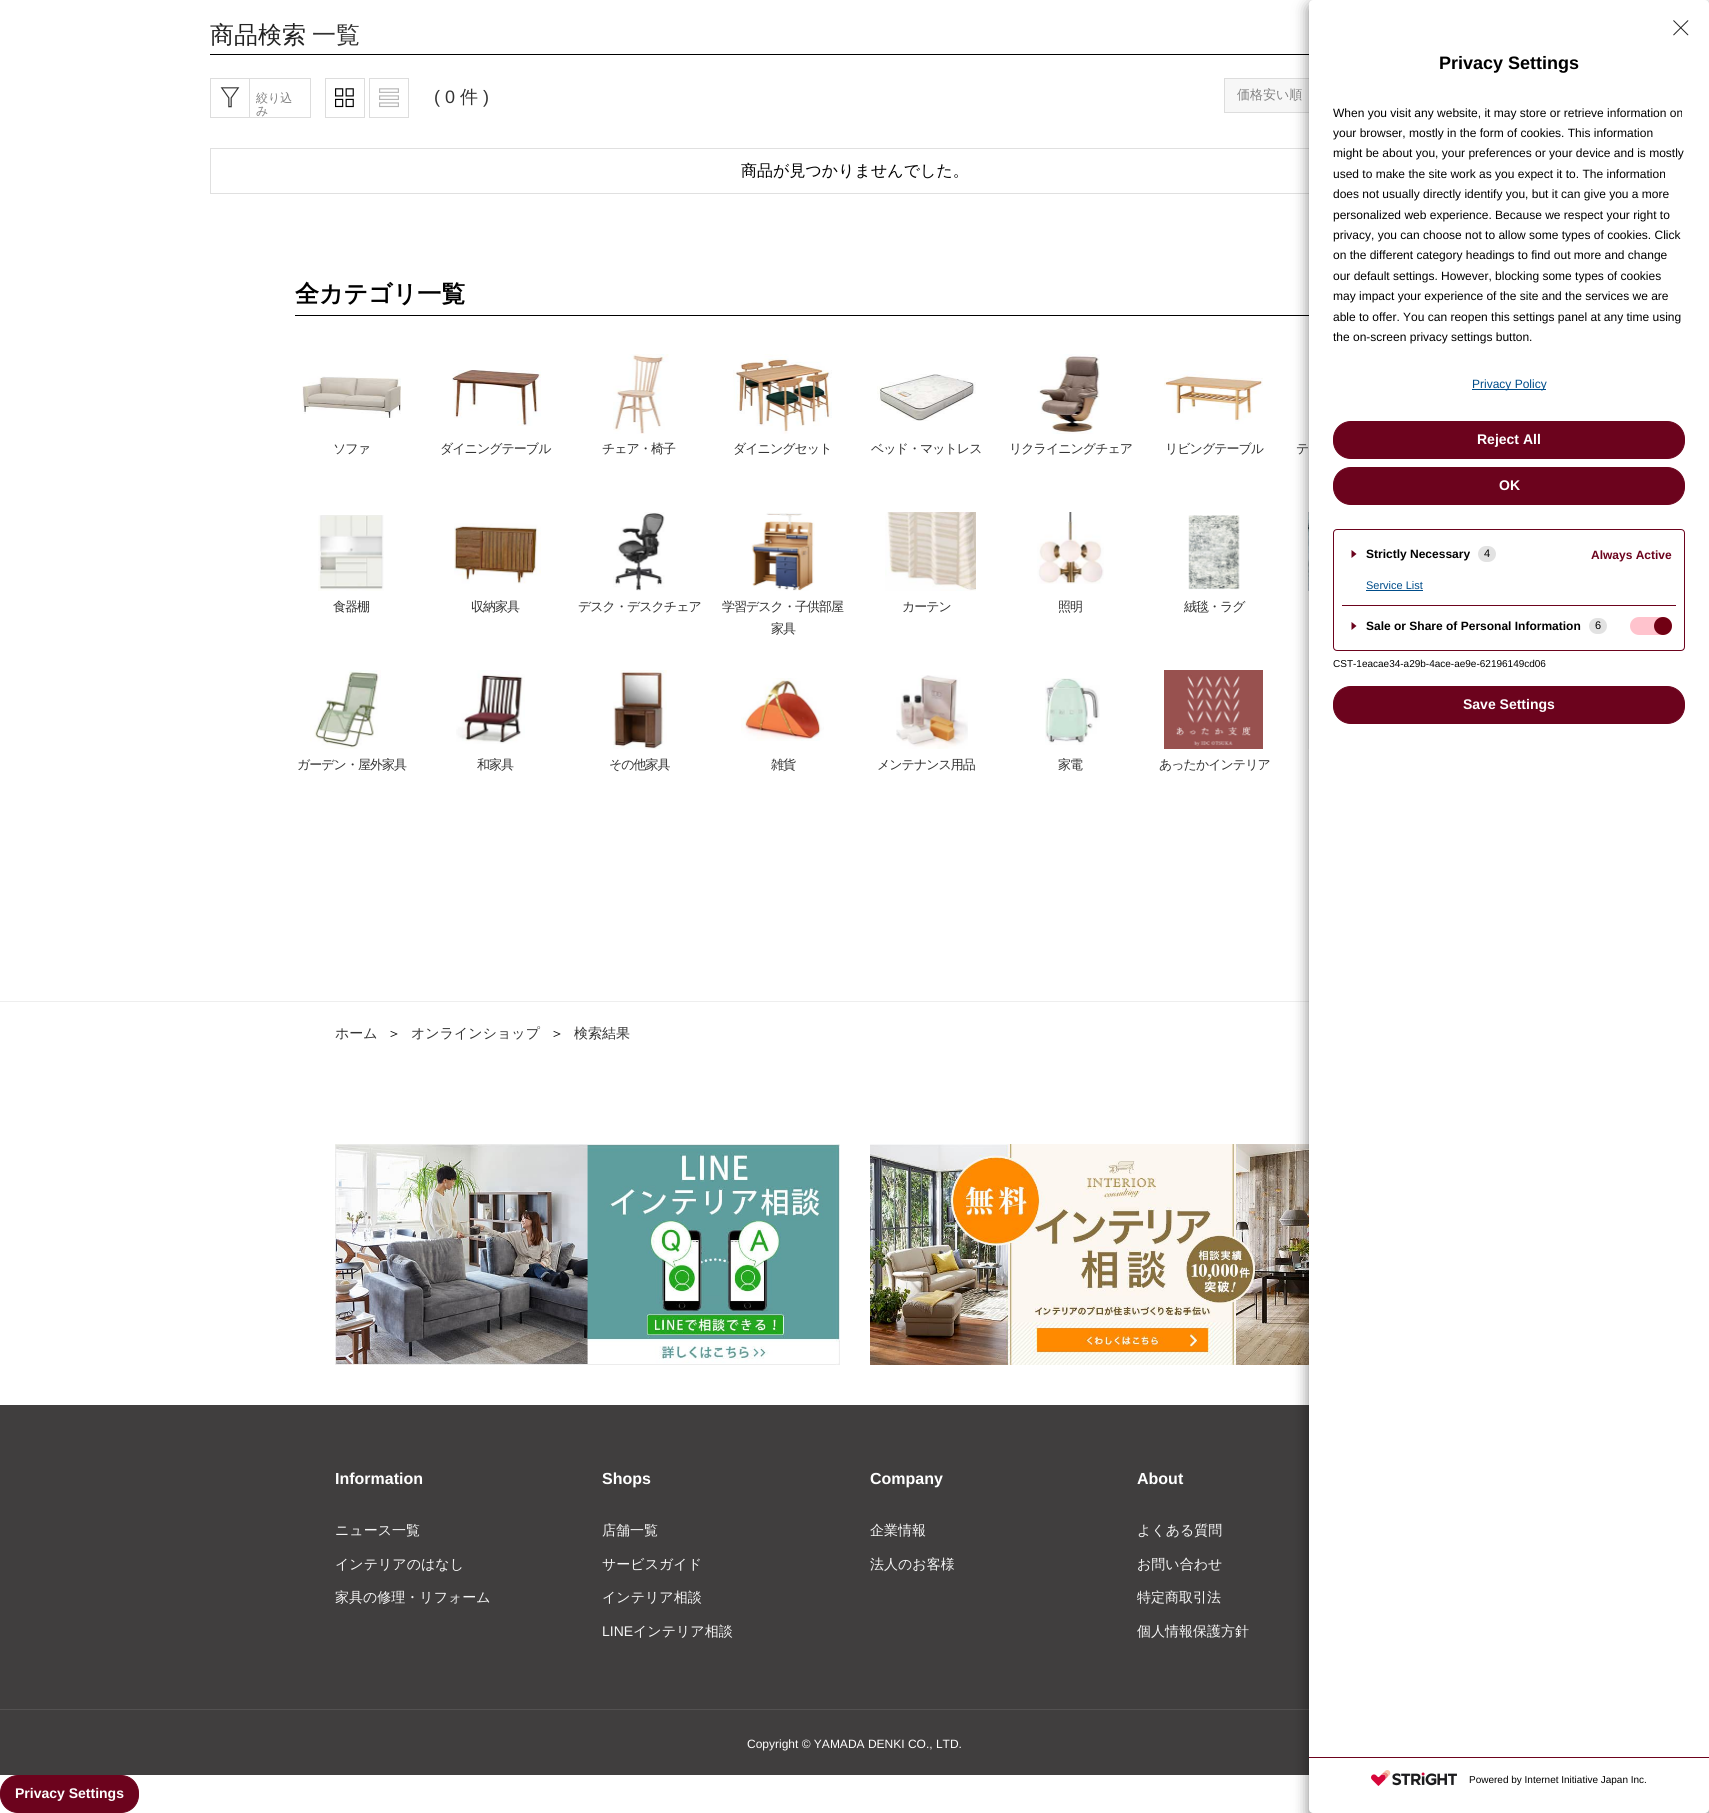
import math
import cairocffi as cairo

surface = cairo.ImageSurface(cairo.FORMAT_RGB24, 1709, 1813)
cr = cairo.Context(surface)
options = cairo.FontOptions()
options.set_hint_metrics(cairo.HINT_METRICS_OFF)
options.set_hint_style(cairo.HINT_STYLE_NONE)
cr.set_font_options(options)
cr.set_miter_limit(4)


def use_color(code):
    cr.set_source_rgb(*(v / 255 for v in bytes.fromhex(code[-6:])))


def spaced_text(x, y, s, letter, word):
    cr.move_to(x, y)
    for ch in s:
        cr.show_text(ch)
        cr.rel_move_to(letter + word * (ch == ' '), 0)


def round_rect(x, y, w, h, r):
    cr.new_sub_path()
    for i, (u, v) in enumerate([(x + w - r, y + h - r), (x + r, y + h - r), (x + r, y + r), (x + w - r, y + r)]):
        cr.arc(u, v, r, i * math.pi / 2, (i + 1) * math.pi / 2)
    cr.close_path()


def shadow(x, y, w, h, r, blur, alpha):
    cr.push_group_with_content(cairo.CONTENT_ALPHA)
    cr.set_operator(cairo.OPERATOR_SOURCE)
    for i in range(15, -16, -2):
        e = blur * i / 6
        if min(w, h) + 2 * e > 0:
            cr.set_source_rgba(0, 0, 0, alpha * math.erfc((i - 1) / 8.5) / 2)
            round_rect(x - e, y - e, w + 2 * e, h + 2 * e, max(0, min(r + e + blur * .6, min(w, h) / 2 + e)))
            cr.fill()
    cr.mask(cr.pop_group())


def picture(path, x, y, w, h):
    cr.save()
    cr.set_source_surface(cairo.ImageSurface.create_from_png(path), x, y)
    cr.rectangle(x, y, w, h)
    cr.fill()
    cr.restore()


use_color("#ffffff")
cr.paint()
cr.select_font_face("WenQuanYi Zen Hei Medium")
cr.set_font_size(24)
use_color("#232323")
cr.move_to(210, 43)
cr.show_text("商品検索")
use_color("#333333")
cr.move_to(312, 43)
cr.show_text("一覧")
use_color("#000000")
cr.rectangle(210, 54, 1099, 1)
cr.fill()
cr.rectangle(210.5, 78.5, 39, 39)
use_color("#dddddd")
cr.set_line_width(1)
cr.stroke()
picture("img1.png", 220, 87, 20, 21)
cr.rectangle(249.5, 78.5, 61, 39)
cr.stroke()
cr.set_font_size(12)
use_color("#828282")
cr.move_to(256, 102)
cr.show_text("絞り込")
cr.move_to(256, 115)
cr.show_text("み")
cr.rectangle(325.5, 78.5, 39, 39)
use_color("#dddddd")
cr.stroke()
picture("img2.png", 335, 88, 19, 20)
cr.rectangle(369.5, 78.5, 39, 39)
cr.stroke()
picture("img3.png", 379, 88, 20, 20)
cr.select_font_face("Liberation Sans")
cr.set_font_size(18)
use_color("#333333")
cr.move_to(434, 103)
cr.show_text("( 0")
cr.select_font_face("WenQuanYi Zen Hei Medium")
cr.move_to(460, 103)
cr.show_text("件")
cr.select_font_face("Liberation Sans")
cr.move_to(483, 103)
cr.show_text(")")
use_color("#f7f7f7")
cr.rectangle(1225, 79, 84, 33)
cr.fill()
cr.rectangle(1224.5, 78.5, 91, 34)
use_color("#dddddd")
cr.stroke()
cr.select_font_face("WenQuanYi Zen Hei Medium")
cr.set_font_size(13)
use_color("#828282")
cr.move_to(1237, 99)
cr.show_text("価格安い順")
cr.rectangle(210.5, 148.5, 1289, 45)
use_color("#e0e0e0")
cr.stroke()
cr.set_font_size(16)
use_color("#000000")
cr.move_to(741, 176)
cr.show_text("商品が見つかりませんでした。")
cr.rectangle(295, 315, 1014, 1)
cr.fill()
cr.select_font_face("WenQuanYi Zen Hei", cairo.FONT_SLANT_NORMAL, cairo.FONT_WEIGHT_BOLD)
cr.set_font_size(24)
cr.move_to(295, 302)
cr.show_text("全カテゴリ一覧")
picture("img4.png", 302, 376, 99, 42)
cr.select_font_face("WenQuanYi Zen Hei Medium")
cr.set_font_size(13)
use_color("#333333")
spaced_text(333, 453, "ソファ", -1, 0)
picture("img5.png", 452, 370, 89, 56)
spaced_text(440, 453, "ダイニングテーブル", -1, 0)
picture("img6.png", 613, 354, 56, 80)
spaced_text(602, 453, "チェア・椅子", -1, 0)
picture("img7.png", 733, 354, 99, 80)
spaced_text(733, 453, "ダイニングセット", -1, 0)
picture("img8.png", 877, 374, 99, 47)
spaced_text(871, 453, "ベッド・マットレス", -1, 0)
picture("img9.png", 1037, 354, 63, 80)
spaced_text(1009, 453, "リクライニングチェア", -1, 0)
picture("img10.png", 1164, 370, 99, 54)
spaced_text(1165, 453, "リビングテーブル", -1, 0)
picture("img11.png", 1308, 380, 1, 34)
spaced_text(1296, 453, "テ", -1, 0)
picture("img12.png", 1308, 512, 1, 79)
picture("img13.png", 318, 515, 66, 76)
spaced_text(333, 611, "食器棚", -1, 0)
picture("img14.png", 454, 523, 87, 61)
spaced_text(471, 611, "収納家具", -1, 0)
picture("img15.png", 613, 512, 52, 79)
spaced_text(578, 611, "デスク・デスクチェア", -1, 0)
picture("img16.png", 751, 512, 64, 79)
spaced_text(722, 611, "学習デスク・子供部屋", -1, 0)
spaced_text(771, 633, "家具", -1, 0)
picture("img17.png", 885, 512, 91, 79)
spaced_text(902, 611, "カーテン", -1, 0)
picture("img18.png", 1037, 512, 67, 72)
spaced_text(1058, 611, "照明", -1, 0)
picture("img19.png", 1188, 515, 52, 75)
spaced_text(1184, 611, "絨毯・ラグ", -1, 0)
picture("img20.png", 1308, 670, 1, 79)
picture("img21.png", 310, 670, 71, 79)
spaced_text(297, 769, "ガーデン・屋外家具", -1, 0)
picture("img22.png", 456, 670, 69, 74)
spaced_text(477, 769, "和家具", -1, 0)
picture("img23.png", 613, 670, 54, 79)
spaced_text(609, 769, "その他家具", -1, 0)
picture("img24.png", 741, 678, 83, 63)
spaced_text(771, 769, "雑貨", -1, 0)
picture("img25.png", 896, 675, 72, 74)
spaced_text(877, 769, "メンテナンス用品", -1, 0)
picture("img26.png", 1045, 678, 55, 67)
spaced_text(1058, 769, "家電", -1, 0)
picture("img27.png", 1164, 670, 99, 79)
spaced_text(1159, 769, "あったかインテリア", -1, 0)
use_color("#eeeeee")
cr.rectangle(0, 1001, 1309, 1)
cr.fill()
cr.set_font_size(14)
use_color("#333333")
cr.move_to(335, 1038)
cr.show_text("ホーム")
use_color("#000000")
cr.move_to(387, 1038)
cr.show_text("＞")
use_color("#333333")
cr.move_to(411, 1038)
cr.show_text("オンラインショップ")
use_color("#000000")
cr.move_to(550, 1038)
cr.show_text("＞")
use_color("#333333")
cr.move_to(574, 1038)
cr.show_text("検索結果")
picture("img28.png", 335, 1144, 505, 221)
picture("img29.png", 870, 1144, 439, 221)
use_color("#403e3e")
cr.rectangle(0, 1405, 1309, 304)
cr.fill()
cr.select_font_face("Liberation Sans", cairo.FONT_SLANT_NORMAL, cairo.FONT_WEIGHT_BOLD)
cr.set_font_size(16)
use_color("#ffffff")
cr.move_to(335, 1484)
cr.show_text("Information")
cr.select_font_face("WenQuanYi Zen Hei Medium")
cr.set_font_size(14)
use_color("#f5f5f5")
cr.move_to(335, 1535)
cr.show_text("ニュース一覧")
cr.move_to(335, 1569)
cr.show_text("インテリアのはなし")
cr.move_to(335, 1602)
cr.show_text("家具の修理・リフォーム")
cr.select_font_face("Liberation Sans", cairo.FONT_SLANT_NORMAL, cairo.FONT_WEIGHT_BOLD)
cr.set_font_size(16)
use_color("#ffffff")
cr.move_to(602, 1484)
cr.show_text("Shops")
cr.select_font_face("WenQuanYi Zen Hei Medium")
cr.set_font_size(14)
use_color("#f5f5f5")
cr.move_to(602, 1535)
cr.show_text("店舗一覧")
cr.move_to(602, 1569)
cr.show_text("サービスガイド")
cr.move_to(602, 1602)
cr.show_text("インテリア相談")
cr.select_font_face("Liberation Sans")
cr.move_to(602, 1636)
cr.show_text("LINE")
cr.select_font_face("WenQuanYi Zen Hei Medium")
cr.move_to(633, 1636)
cr.show_text("インテリア相談")
cr.select_font_face("Liberation Sans", cairo.FONT_SLANT_NORMAL, cairo.FONT_WEIGHT_BOLD)
cr.set_font_size(16)
use_color("#ffffff")
cr.move_to(870, 1484)
cr.show_text("Company")
cr.select_font_face("WenQuanYi Zen Hei Medium")
cr.set_font_size(14)
use_color("#f5f5f5")
cr.move_to(870, 1535)
cr.show_text("企業情報")
cr.move_to(870, 1569)
cr.show_text("法人のお客様")
cr.select_font_face("Liberation Sans", cairo.FONT_SLANT_NORMAL, cairo.FONT_WEIGHT_BOLD)
cr.set_font_size(16)
use_color("#ffffff")
cr.move_to(1137, 1484)
cr.show_text("About")
cr.select_font_face("WenQuanYi Zen Hei Medium")
cr.set_font_size(14)
use_color("#f5f5f5")
cr.move_to(1137, 1535)
cr.show_text("よくある質問")
cr.move_to(1137, 1569)
cr.show_text("お問い合わせ")
cr.move_to(1137, 1602)
cr.show_text("特定商取引法")
cr.move_to(1137, 1636)
cr.show_text("個人情報保護方針")
use_color("#403e3e")
cr.rectangle(0, 1710, 1309, 65)
cr.fill()
use_color("#535151")
cr.rectangle(0, 1709, 1309, 1)
cr.fill()
cr.select_font_face("Liberation Sans")
cr.set_font_size(12)
use_color("#ffffff")
cr.move_to(747, 1748)
cr.show_text("Copyright © YAMADA DENKI CO., LTD.")
use_color("#000000")
shadow(1309, 5, 400, 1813, 4, 7.5, 0.5)
use_color("#ffffff")
round_rect(1309, 0, 400, 1813, 4)
cr.fill()
picture("img30.png", 1673, 20, 16, 16)
cr.select_font_face("Liberation Sans", cairo.FONT_SLANT_NORMAL, cairo.FONT_WEIGHT_BOLD)
cr.set_font_size(18)
use_color("#000000")
cr.move_to(1439, 69)
cr.show_text("Privacy Settings")
cr.select_font_face("Liberation Sans")
cr.set_font_size(12)
cr.move_to(1333, 117)
cr.show_text("When you visit any website, it may store or retrieve information on")
cr.move_to(1333, 137)
cr.show_text("your browser, mostly in the form of cookies. This information")
cr.move_to(1333, 157)
cr.show_text("might be about you, your preferences or your device and is mostly")
cr.move_to(1333, 178)
cr.show_text("used to make the site work as you expect it to. The information")
cr.move_to(1333, 198)
cr.show_text("does not usually directly identify you, but it can give you a more")
cr.move_to(1333, 219)
cr.show_text("personalized web experience. Because we respect your right to")
cr.move_to(1333, 239)
cr.show_text("privacy, you can choose not to allow some types of cookies. Click")
cr.move_to(1333, 259)
cr.show_text("on the different category headings to find out more and change")
cr.move_to(1333, 280)
cr.show_text("our default settings. However, blocking some types of cookies")
cr.move_to(1333, 300)
cr.show_text("may impact your experience of the site and the services we are")
cr.move_to(1333, 321)
cr.show_text("able to offer. You can reopen this settings panel at any time using")
cr.move_to(1333, 341)
cr.show_text("the on-screen privacy settings button.")
use_color("#004d8a")
cr.rectangle(1472, 389, 74, 1)
cr.fill()
cr.move_to(1472, 388)
cr.show_text("Privacy Policy")
use_color("#6c031d")
round_rect(1333.5, 421.5, 351, 37, 17.5)
cr.fill_preserve()
cr.stroke()
cr.select_font_face("Liberation Sans", cairo.FONT_SLANT_NORMAL, cairo.FONT_WEIGHT_BOLD)
cr.set_font_size(14)
use_color("#ffffff")
cr.move_to(1477, 444)
cr.show_text("Reject All")
use_color("#6c031d")
round_rect(1333.5, 467.5, 351, 37, 17.5)
cr.fill_preserve()
cr.stroke()
use_color("#ffffff")
cr.move_to(1499, 490)
cr.show_text("OK")
round_rect(1333.5, 529.5, 351, 121, 3.5)
use_color("#6c031d")
cr.stroke()
cr.new_path()
cr.move_to(1351.5, 558)
cr.line_to(1356.5, 554)
cr.line_to(1351.5, 550)
cr.close_path()
cr.fill()
cr.set_font_size(12)
use_color("#000000")
cr.move_to(1366, 558)
cr.show_text("Strictly Necessary")
use_color("#e2e2e2")
round_rect(1478, 546, 18, 16, 8)
cr.fill()
cr.select_font_face("Liberation Sans")
cr.set_font_size(11)
use_color("#000000")
cr.move_to(1484, 557)
cr.show_text("4")
cr.select_font_face("Liberation Sans", cairo.FONT_SLANT_NORMAL, cairo.FONT_WEIGHT_BOLD)
cr.set_font_size(12)
use_color("#6c031d")
cr.move_to(1591, 559)
cr.show_text("Always Active")
cr.select_font_face("Liberation Sans")
cr.set_font_size(11)
use_color("#004d8a")
cr.move_to(1366, 589)
cr.show_text("Service List")
cr.rectangle(1366, 590, 57, 1)
cr.fill()
use_color("#6c031d")
cr.rectangle(1342, 605, 334, 1)
cr.fill()
cr.new_path()
cr.move_to(1351.5, 630)
cr.line_to(1356.5, 626)
cr.line_to(1351.5, 622)
cr.close_path()
cr.fill()
cr.select_font_face("Liberation Sans", cairo.FONT_SLANT_NORMAL, cairo.FONT_WEIGHT_BOLD)
cr.set_font_size(12)
use_color("#000000")
cr.move_to(1366, 630)
cr.show_text("Sale or Share of Personal Information")
use_color("#e2e2e2")
round_rect(1589, 618, 18, 16, 8)
cr.fill()
cr.select_font_face("Liberation Sans")
cr.set_font_size(11)
use_color("#000000")
cr.move_to(1595, 629)
cr.show_text("6")
use_color("#ffc3cd")
cr.new_path()
cr.move_to(1639, 617)
cr.line_to(1663, 617)
cr.curve_to(1668, 617, 1672, 621, 1672, 626)
cr.curve_to(1672, 631, 1668, 635, 1663, 635)
cr.line_to(1639, 635)
cr.curve_to(1634, 635, 1630, 631, 1630, 626)
cr.curve_to(1630, 621, 1634, 617, 1639, 617)
cr.close_path()
cr.fill()
use_color("#710013")
cr.arc(1663, 626, 9, 0, 2 * math.pi)
cr.fill()
cr.set_font_size(10)
use_color("#000000")
cr.move_to(1333, 667)
cr.show_text("CST-1eacae34-a29b-4ace-ae9e-62196149cd06")
use_color("#6c031d")
round_rect(1333.5, 686.5, 351, 37, 17.5)
cr.fill_preserve()
cr.stroke()
cr.select_font_face("Liberation Sans", cairo.FONT_SLANT_NORMAL, cairo.FONT_WEIGHT_BOLD)
cr.set_font_size(14)
use_color("#ffffff")
cr.move_to(1463, 709)
cr.show_text("Save Settings")
use_color("#6c031d")
cr.rectangle(1309, 1757, 400, 1)
cr.fill()
picture("img31.png", 1371, 1770, 86, 16)
cr.select_font_face("Liberation Sans")
cr.set_font_size(10)
use_color("#000000")
cr.move_to(1469, 1783)
cr.show_text("Powered by Internet Initiative Japan Inc.")
use_color("#6c031d")
round_rect(0.5, 1775.5, 138, 37, 17.5)
cr.fill_preserve()
cr.stroke()
cr.select_font_face("Liberation Sans", cairo.FONT_SLANT_NORMAL, cairo.FONT_WEIGHT_BOLD)
cr.set_font_size(14)
use_color("#ffffff")
cr.move_to(15, 1798)
cr.show_text("Privacy Settings")
surface.write_to_png("result.png")
